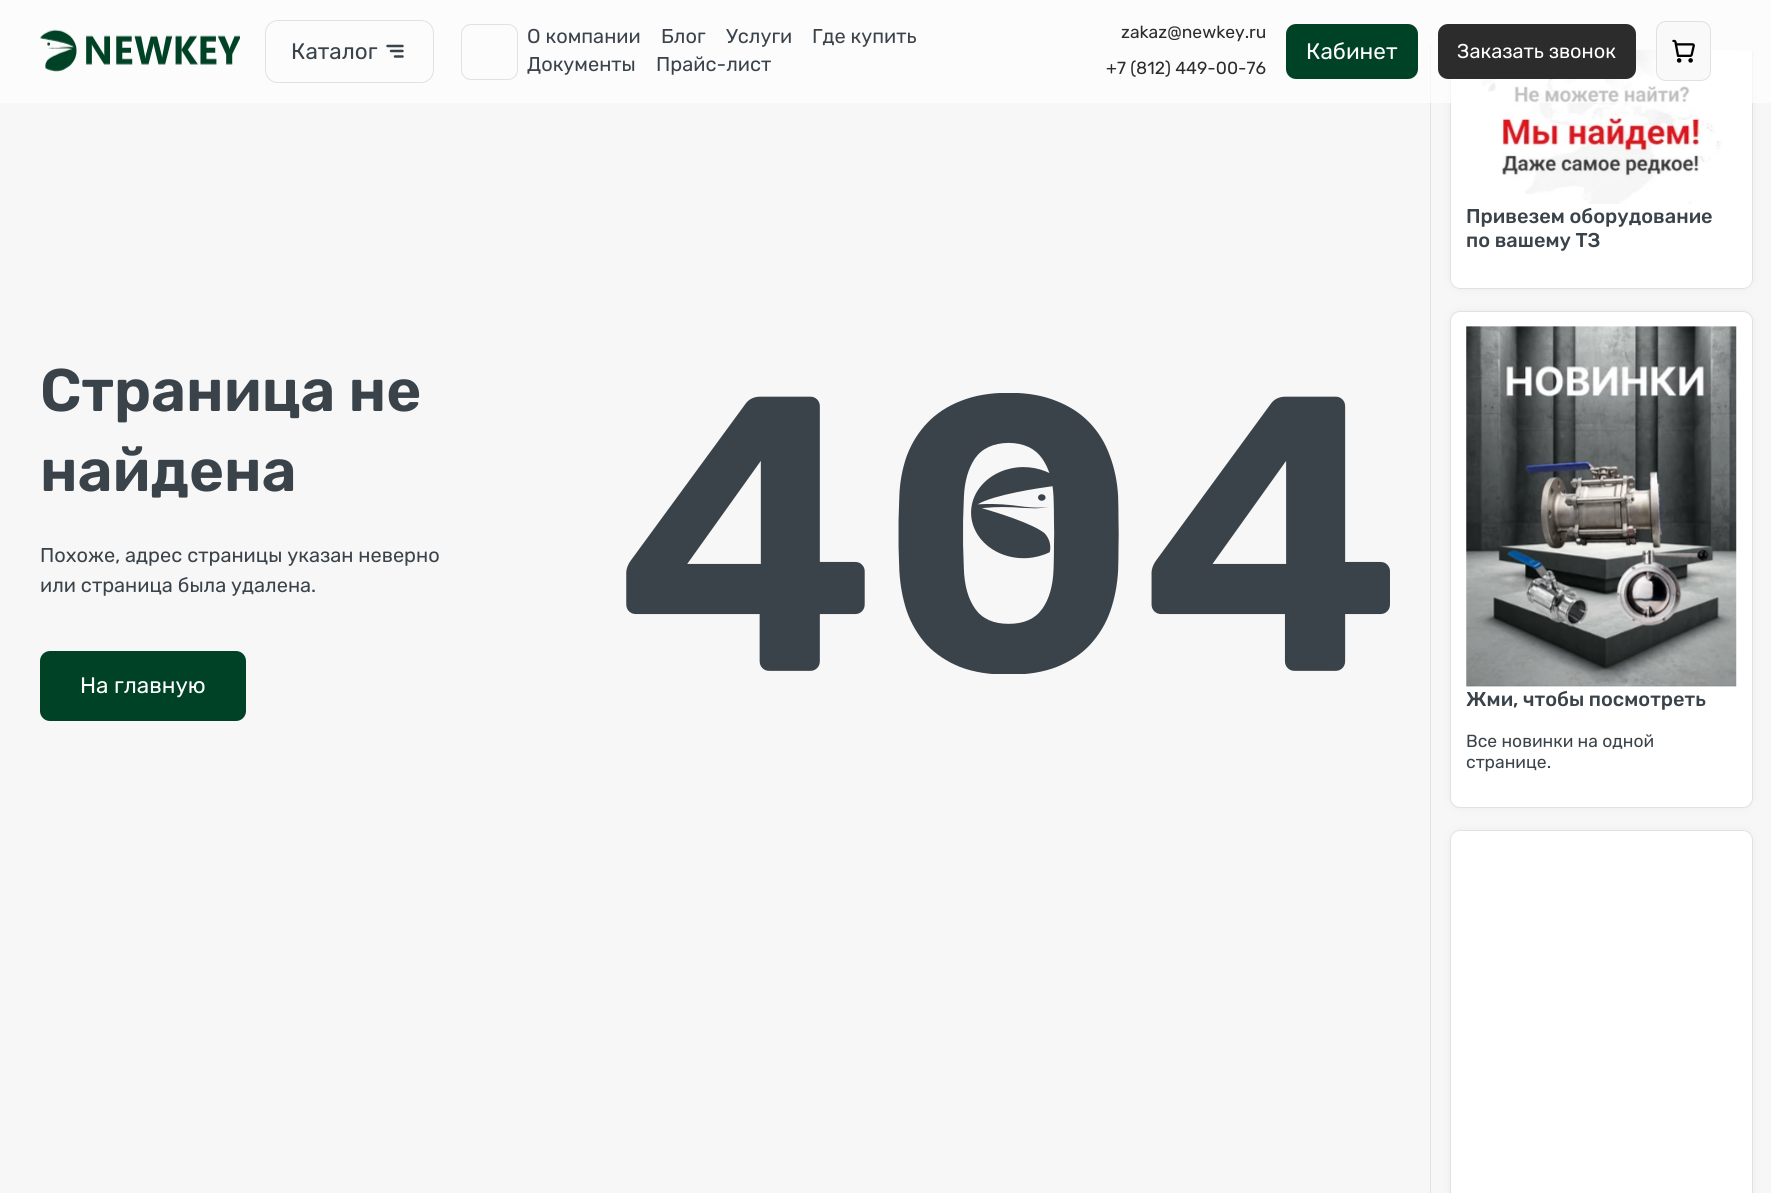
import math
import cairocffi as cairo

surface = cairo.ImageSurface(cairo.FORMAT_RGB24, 1771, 1193)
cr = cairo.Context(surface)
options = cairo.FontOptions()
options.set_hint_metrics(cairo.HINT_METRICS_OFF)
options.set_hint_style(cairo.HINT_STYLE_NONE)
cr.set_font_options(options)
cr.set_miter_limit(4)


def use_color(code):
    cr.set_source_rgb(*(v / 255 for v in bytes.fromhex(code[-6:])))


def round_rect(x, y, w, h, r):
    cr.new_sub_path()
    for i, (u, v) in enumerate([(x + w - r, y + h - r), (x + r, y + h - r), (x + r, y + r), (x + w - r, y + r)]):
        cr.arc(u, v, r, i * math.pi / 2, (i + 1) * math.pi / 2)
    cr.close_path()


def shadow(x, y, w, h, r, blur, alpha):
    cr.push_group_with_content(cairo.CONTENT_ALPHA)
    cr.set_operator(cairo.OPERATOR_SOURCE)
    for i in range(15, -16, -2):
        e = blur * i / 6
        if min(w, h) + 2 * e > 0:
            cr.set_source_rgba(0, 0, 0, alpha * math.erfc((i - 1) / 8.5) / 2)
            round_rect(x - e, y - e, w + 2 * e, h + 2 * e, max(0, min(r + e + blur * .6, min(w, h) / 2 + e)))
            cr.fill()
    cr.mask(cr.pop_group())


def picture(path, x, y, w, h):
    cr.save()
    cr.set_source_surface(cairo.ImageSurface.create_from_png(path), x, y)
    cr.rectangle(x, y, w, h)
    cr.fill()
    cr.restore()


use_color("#f7f7f8")
cr.paint()
use_color("#e1e1e1")
cr.rectangle(1430, 45, 1, 1148)
cr.fill()
cr.save()
cr.rectangle(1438, 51, 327, 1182)
cr.clip()
use_color("#45494e")
shadow(1450, -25, 303, 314, 10, 5, 0.06)
cr.restore()
use_color("#ffffff")
cr.new_path()
cr.move_to(1450, 51)
cr.line_to(1753, 51)
cr.line_to(1753, 279)
cr.curve_to(1753, 284.5, 1748.5, 289, 1743, 289)
cr.line_to(1460, 289)
cr.curve_to(1454.5, 289, 1450, 284.5, 1450, 279)
cr.close_path()
cr.fill()
cr.save()
cr.rectangle(1438, 51, 327, 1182)
cr.clip()
round_rect(1450.5, -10.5, 302, 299, 9.5)
use_color("#e1e1e1")
cr.set_line_width(1)
cr.stroke()
cr.restore()
picture("img4.png", 1466, 50, 270, 154)
cr.set_source_rgba(1, 1, 1, 0.67)
cr.rectangle(0, 0, 1771, 103)
cr.fill()
picture("img1.png", 40, 29, 200, 43)
round_rect(265.5, 20.5, 168, 62, 12.5)
use_color("#e1e1e1")
cr.set_line_width(1)
cr.stroke()
cr.select_font_face("Rubik")
cr.set_font_size(22.5)
use_color("#3b434a")
cr.move_to(291, 59)
cr.show_text("Каталог")
cr.new_path()
cr.move_to(395, 56.5)
cr.line_to(402.5, 56.5)
cr.move_to(391, 51)
cr.line_to(402.5, 51)
cr.move_to(387.5, 46)
cr.line_to(402.5, 46)
cr.set_line_width(2.5)
cr.set_line_cap(cairo.LINE_CAP_ROUND)
cr.set_line_join(cairo.LINE_JOIN_ROUND)
cr.stroke()
round_rect(461.5, 24.5, 56, 55, 9.5)
use_color("#e1e1e1")
cr.set_line_width(1)
cr.set_line_cap(cairo.LINE_CAP_BUTT)
cr.set_line_join(cairo.LINE_JOIN_MITER)
cr.stroke()
cr.set_font_size(20)
use_color("#3b434a")
cr.move_to(527, 43)
cr.show_text("О компании")
cr.move_to(661, 43)
cr.show_text("Блог")
cr.move_to(726, 43)
cr.show_text("Услуги")
cr.move_to(812, 43)
cr.show_text("Где купить")
cr.move_to(527, 71)
cr.show_text("Документы")
cr.move_to(656, 71)
cr.show_text("Прайс-лист")
cr.set_font_size(17.5)
use_color("#2c2c2c")
cr.move_to(1121, 38)
cr.show_text("zakaz@newkey.ru")
cr.move_to(1106, 74)
cr.show_text("+7 (812) 449-00-76")
use_color("#004225")
round_rect(1286, 24, 132, 55, 10)
cr.fill()
cr.set_font_size(22.5)
use_color("#ffffff")
cr.move_to(1306, 59)
cr.show_text("Кабинет")
use_color("#2c2c2c")
round_rect(1438, 24, 198, 55, 10)
cr.fill()
cr.set_font_size(20)
use_color("#ffffff")
cr.move_to(1457, 58)
cr.show_text("Заказать звонок")
use_color("#f9f9f9")
round_rect(1656.5, 21.5, 54, 59, 9.5)
cr.fill_preserve()
use_color("#e1e1e1")
cr.stroke()
picture("img2.png", 1672, 39, 23, 24)
cr.select_font_face("Rubik SemiBold")
cr.set_font_size(60)
use_color("#3b434a")
cr.move_to(40, 411)
cr.show_text("Страница не")
cr.move_to(40, 491)
cr.show_text("найдена")
cr.select_font_face("Rubik")
cr.set_font_size(20)
cr.move_to(40, 562)
cr.show_text("Похоже, адрес страницы указан неверно")
cr.move_to(40, 592)
cr.show_text("или страница была удалена.")
use_color("#004225")
round_rect(40, 651, 206, 70, 10)
cr.fill()
cr.set_font_size(22.5)
use_color("#ffffff")
cr.move_to(80, 693)
cr.show_text("На главную")
picture("img3.png", 626, 393, 764, 281)
cr.select_font_face("Rubik Medium")
cr.set_font_size(20)
use_color("#3b434a")
cr.move_to(1466, 223)
cr.show_text("Привезем оборудование")
cr.move_to(1466, 247)
cr.show_text("по вашему ТЗ")
use_color("#45494e")
shadow(1450, 311, 303, 497, 10, 5, 0.06)
use_color("#ffffff")
round_rect(1450.5, 311.5, 302, 496, 9.5)
cr.fill_preserve()
use_color("#e1e1e1")
cr.stroke()
picture("img5.png", 1466, 326, 271, 361)
use_color("#3b434a")
cr.move_to(1466, 706)
cr.show_text("Жми, чтобы посмотреть")
cr.select_font_face("Rubik")
cr.set_font_size(17.5)
cr.move_to(1466, 747)
cr.show_text("Все новинки на одной")
cr.move_to(1466, 768)
cr.show_text("странице.")
use_color("#45494e")
shadow(1450, 830, 303, 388, 10, 5, 0.06)
use_color("#ffffff")
cr.new_path()
cr.move_to(1460, 830)
cr.line_to(1743, 830)
cr.curve_to(1748.5, 830, 1753, 834.5, 1753, 840)
cr.line_to(1753, 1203)
cr.line_to(1450, 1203)
cr.line_to(1450, 840)
cr.curve_to(1450, 834.5, 1454.5, 830, 1460, 830)
cr.close_path()
cr.fill()
round_rect(1450.5, 830.5, 302, 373, 9.5)
use_color("#e1e1e1")
cr.stroke()
surface.write_to_png("result.png")
